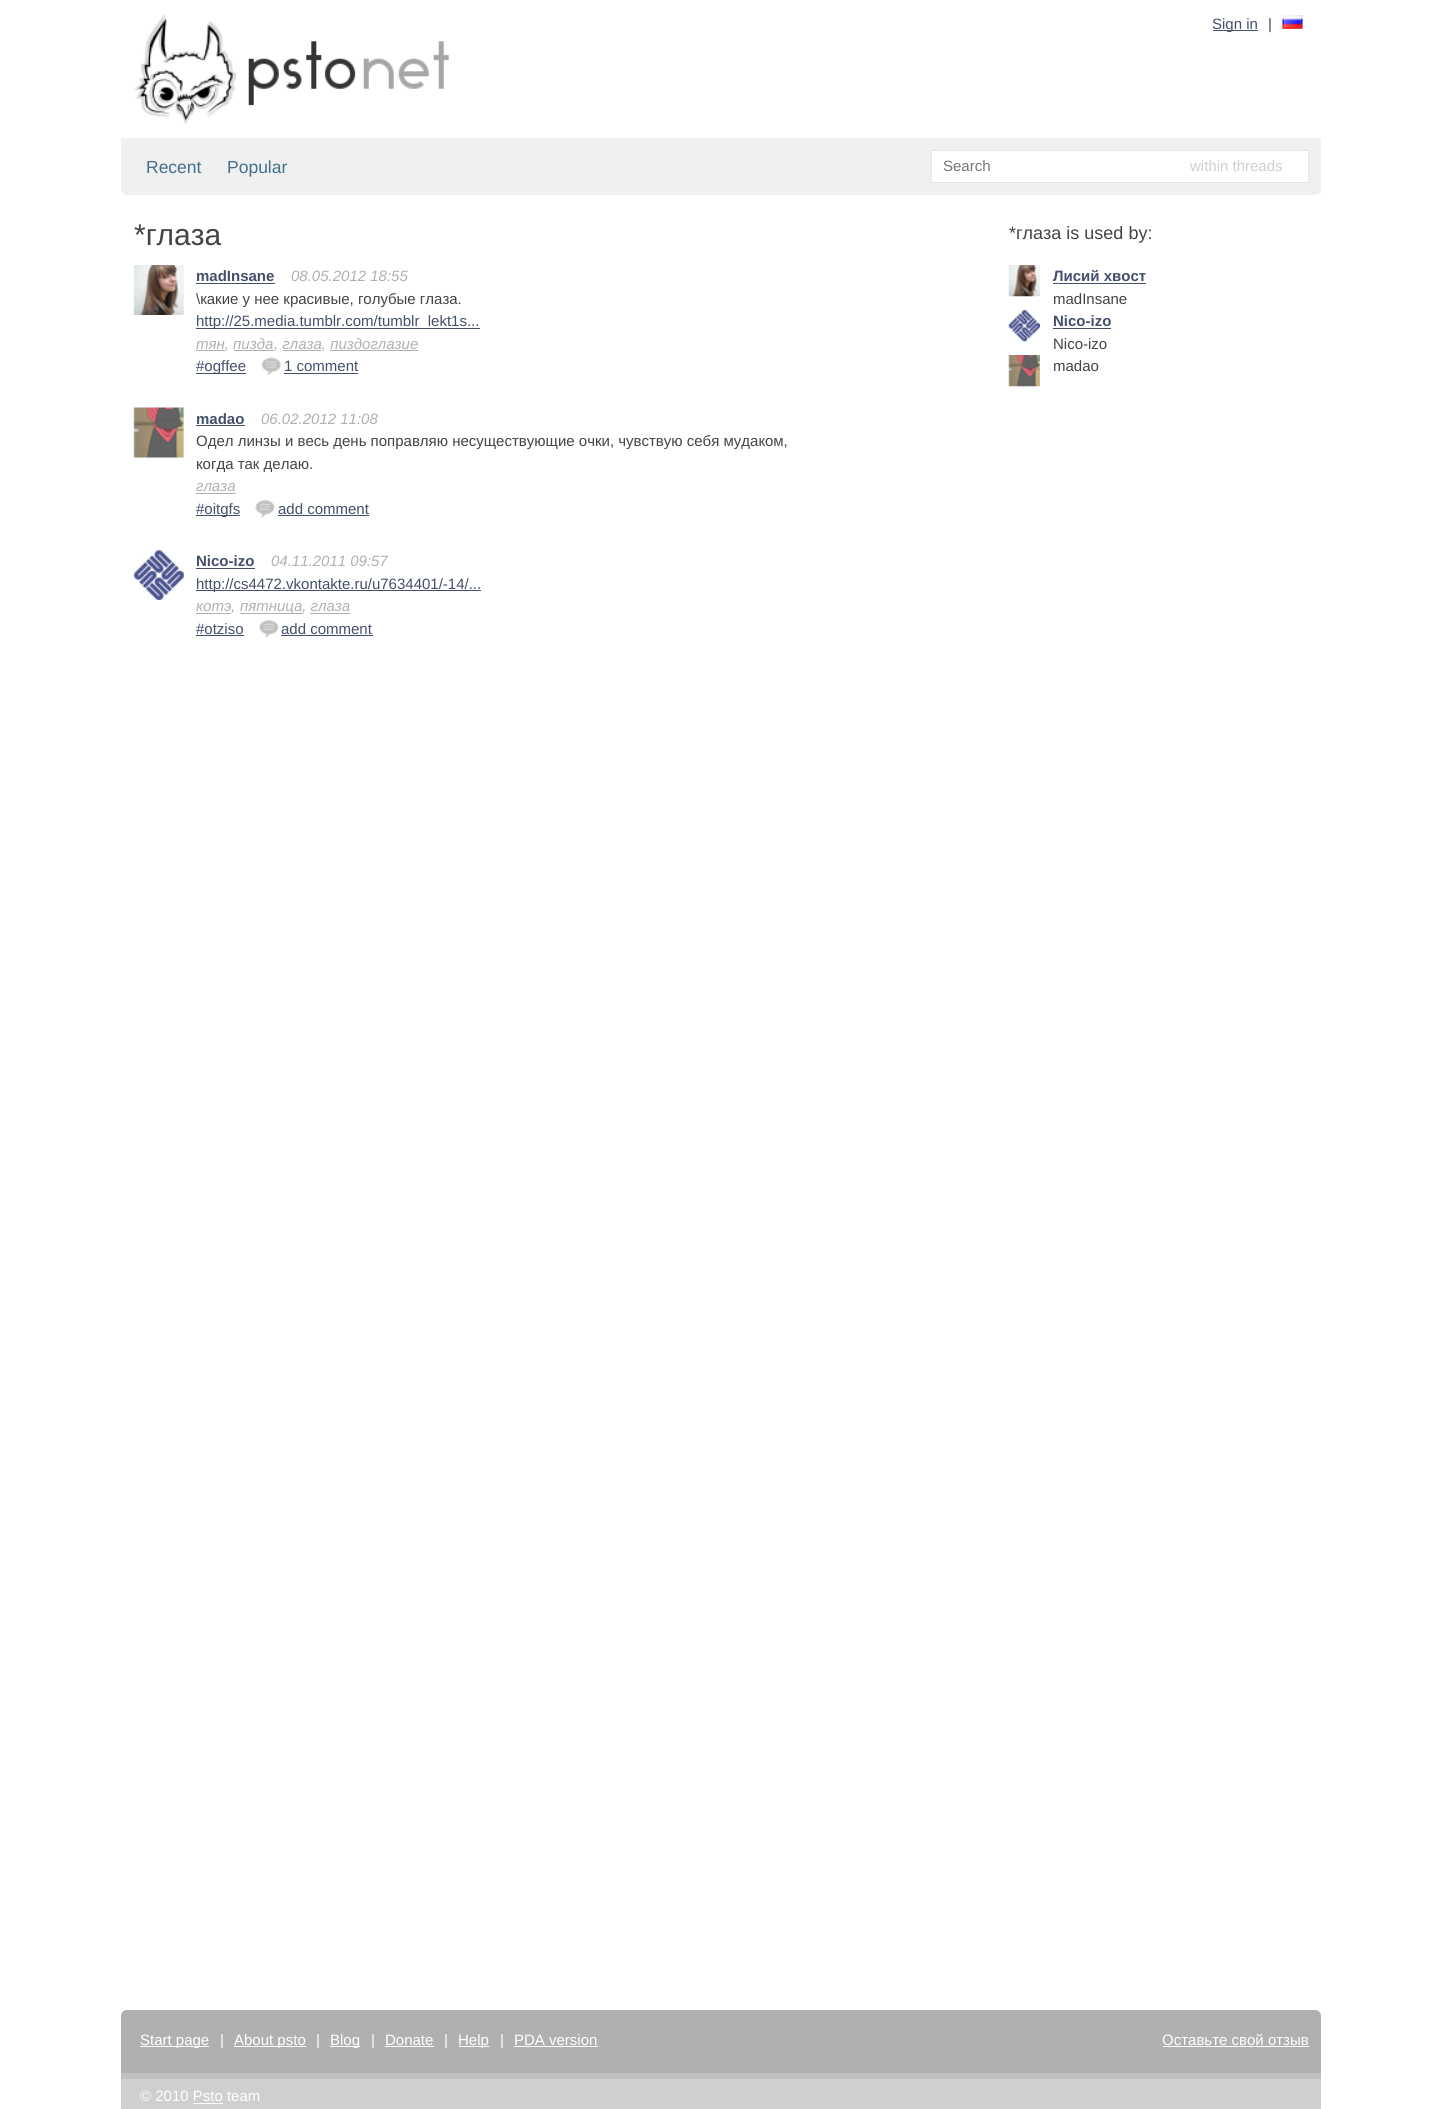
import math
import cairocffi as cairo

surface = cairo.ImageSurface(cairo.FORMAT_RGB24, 1442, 2109)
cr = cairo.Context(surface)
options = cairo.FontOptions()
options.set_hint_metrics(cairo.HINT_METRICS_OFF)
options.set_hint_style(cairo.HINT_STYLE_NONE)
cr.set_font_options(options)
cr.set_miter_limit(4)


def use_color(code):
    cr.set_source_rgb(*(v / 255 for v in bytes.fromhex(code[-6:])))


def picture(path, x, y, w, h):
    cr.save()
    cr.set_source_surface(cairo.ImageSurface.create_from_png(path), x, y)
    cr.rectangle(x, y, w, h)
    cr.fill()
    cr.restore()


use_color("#ffffff")
cr.paint()
picture("img1.png", 134, 14, 315, 110)
use_color("#444f6c")
cr.rectangle(1213, 30, 45, 1)
cr.fill()
cr.select_font_face("Liberation Sans")
cr.set_font_size(15)
cr.move_to(1212, 29)
cr.show_text("Sign in")
use_color("#444444")
cr.move_to(1268, 29)
cr.show_text("|")
picture("img2.png", 1282, 15, 21, 14)
use_color("#f0f0f0")
cr.new_path()
cr.move_to(121, 138)
cr.line_to(1321, 138)
cr.line_to(1321, 189)
cr.curve_to(1321, 192.5, 1318.5, 195, 1315, 195)
cr.line_to(127, 195)
cr.curve_to(123.5, 195, 121, 192.5, 121, 189)
cr.close_path()
cr.fill()
cr.set_font_size(17.5)
use_color("#446f8c")
cr.move_to(146, 173)
cr.show_text("Recent")
cr.move_to(227, 173)
cr.show_text("Popular")
use_color("#ffffff")
cr.rectangle(931.5, 150.5, 377, 32)
cr.fill_preserve()
use_color("#e6e6e6")
cr.set_line_width(1)
cr.stroke()
cr.set_font_size(15)
use_color("#757575")
cr.move_to(943, 171)
cr.show_text("Search")
use_color("#cfcfcf")
cr.move_to(1190, 171)
cr.show_text("within threads")
cr.set_font_size(30)
use_color("#444444")
cr.move_to(134, 245)
cr.show_text("*глаза")
picture("img3.png", 133, 265, 51, 50)
cr.select_font_face("Liberation Sans", cairo.FONT_SLANT_NORMAL, cairo.FONT_WEIGHT_BOLD)
cr.set_font_size(15)
use_color("#444f6c")
cr.move_to(196, 281)
cr.show_text("madInsane")
cr.rectangle(196, 283, 79, 1)
cr.fill()
cr.select_font_face("Liberation Sans", cairo.FONT_SLANT_ITALIC)
use_color("#b0b0b0")
cr.move_to(291, 281)
cr.show_text("08.05.2012 18:55")
cr.select_font_face("Liberation Sans")
use_color("#444444")
cr.move_to(196, 304)
cr.show_text("\\какие у нее красивые, голубые глаза.")
use_color("#444f6c")
cr.rectangle(196, 328, 284, 1)
cr.fill()
cr.move_to(196, 326)
cr.show_text("http://25.media.tumblr.com/tumblr_lekt1s...")
use_color("#b0b0b0")
cr.rectangle(196, 350, 29, 1)
cr.fill()
cr.select_font_face("Liberation Sans", cairo.FONT_SLANT_ITALIC)
cr.move_to(196, 349)
cr.show_text("тян, пизда")
cr.rectangle(234, 350, 40, 1)
cr.fill()
cr.move_to(274, 349)
cr.show_text(", глаза, пиздоглазие")
cr.rectangle(283, 350, 38, 1)
cr.fill()
cr.rectangle(330, 350, 88, 1)
cr.fill()
use_color("#444f6c")
cr.rectangle(196, 373, 50, 1)
cr.fill()
cr.select_font_face("Liberation Sans")
cr.move_to(196, 371)
cr.show_text("#ogffee")
picture("img4.png", 261, 357, 21, 18)
cr.move_to(284, 371)
cr.show_text("1 comment")
cr.rectangle(284, 373, 74, 1)
cr.fill()
picture("img5.png", 133, 407, 51, 51)
cr.select_font_face("Liberation Sans", cairo.FONT_SLANT_NORMAL, cairo.FONT_WEIGHT_BOLD)
cr.move_to(196, 424)
cr.show_text("madao")
cr.rectangle(196, 425, 49, 1)
cr.fill()
cr.select_font_face("Liberation Sans", cairo.FONT_SLANT_ITALIC)
use_color("#b0b0b0")
cr.move_to(261, 424)
cr.show_text("06.02.2012 11:08")
cr.select_font_face("Liberation Sans")
use_color("#444444")
cr.move_to(196, 446)
cr.show_text("Одел линзы и весь день поправляю несуществующие очки, чувствую себя мудаком,")
cr.move_to(196, 469)
cr.show_text("когда так делаю.")
cr.select_font_face("Liberation Sans", cairo.FONT_SLANT_ITALIC)
use_color("#b0b0b0")
cr.move_to(196, 491)
cr.show_text("глаза")
cr.rectangle(196, 493, 40, 1)
cr.fill()
use_color("#444f6c")
cr.rectangle(196, 515, 44, 1)
cr.fill()
cr.select_font_face("Liberation Sans")
cr.move_to(196, 514)
cr.show_text("#oitgfs")
picture("img6.png", 255, 500, 20, 18)
cr.move_to(278, 514)
cr.show_text("add comment")
cr.rectangle(278, 515, 91, 1)
cr.fill()
picture("img7.png", 133, 550, 51, 50)
cr.select_font_face("Liberation Sans", cairo.FONT_SLANT_NORMAL, cairo.FONT_WEIGHT_BOLD)
cr.move_to(196, 566)
cr.show_text("Nico-izo")
cr.rectangle(196, 568, 59, 1)
cr.fill()
cr.select_font_face("Liberation Sans", cairo.FONT_SLANT_ITALIC)
use_color("#b0b0b0")
cr.move_to(271, 566)
cr.show_text("04.11.2011 09:57")
use_color("#444f6c")
cr.rectangle(196, 590, 285, 1)
cr.fill()
cr.select_font_face("Liberation Sans")
cr.move_to(196, 589)
cr.show_text("http://cs4472.vkontakte.ru/u7634401/-14/...")
cr.select_font_face("Liberation Sans", cairo.FONT_SLANT_ITALIC)
use_color("#b0b0b0")
cr.move_to(196, 611)
cr.show_text("котэ,")
cr.rectangle(196, 613, 35, 1)
cr.fill()
cr.rectangle(240, 613, 63, 1)
cr.fill()
cr.move_to(240, 611)
cr.show_text("пятница, глаза")
cr.rectangle(310, 613, 40, 1)
cr.fill()
cr.select_font_face("Liberation Sans")
use_color("#444f6c")
cr.move_to(196, 634)
cr.show_text("#otziso")
cr.rectangle(196, 635, 48, 1)
cr.fill()
picture("img8.png", 259, 620, 20, 18)
cr.move_to(281, 634)
cr.show_text("add comment")
cr.rectangle(281, 635, 92, 1)
cr.fill()
cr.set_font_size(18)
use_color("#444444")
cr.move_to(1009, 239)
cr.show_text("*глаза is used by:")
picture("img9.png", 1008, 265, 32, 32)
cr.select_font_face("Liberation Sans", cairo.FONT_SLANT_NORMAL, cairo.FONT_WEIGHT_BOLD)
cr.set_font_size(15)
use_color("#444f6c")
cr.move_to(1053, 281)
cr.show_text("Лисий хвост")
cr.rectangle(1053, 283, 93, 1)
cr.fill()
cr.select_font_face("Liberation Sans")
use_color("#444444")
cr.move_to(1053, 304)
cr.show_text("madInsane")
picture("img10.png", 1008, 310, 32, 32)
cr.select_font_face("Liberation Sans", cairo.FONT_SLANT_NORMAL, cairo.FONT_WEIGHT_BOLD)
use_color("#444f6c")
cr.move_to(1053, 326)
cr.show_text("Nico-izo")
cr.rectangle(1053, 328, 58, 1)
cr.fill()
cr.select_font_face("Liberation Sans")
use_color("#444444")
cr.move_to(1053, 349)
cr.show_text("Nico-izo")
picture("img11.png", 1008, 355, 32, 32)
cr.move_to(1053, 371)
cr.show_text("madao")
use_color("#b0b0b0")
cr.new_path()
cr.move_to(127, 2010)
cr.line_to(1315, 2010)
cr.curve_to(1318.5, 2010, 1321, 2012.5, 1321, 2016)
cr.line_to(1321, 2073)
cr.line_to(121, 2073)
cr.line_to(121, 2016)
cr.curve_to(121, 2012.5, 123.5, 2010, 127, 2010)
cr.close_path()
cr.fill()
use_color("#ffffff")
cr.rectangle(140, 2046, 69, 1)
cr.fill()
cr.move_to(140, 2045)
cr.show_text("Start page")
cr.move_to(220, 2045)
cr.show_text("|")
cr.rectangle(234, 2046, 72, 1)
cr.fill()
cr.move_to(234, 2045)
cr.show_text("About psto")
cr.move_to(316, 2045)
cr.show_text("|")
cr.rectangle(330, 2046, 30, 1)
cr.fill()
cr.move_to(330, 2045)
cr.show_text("Blog")
cr.move_to(371, 2045)
cr.show_text("|")
cr.move_to(385, 2045)
cr.show_text("Donate")
cr.rectangle(385, 2046, 49, 1)
cr.fill()
cr.move_to(444, 2045)
cr.show_text("|")
cr.rectangle(459, 2046, 30, 1)
cr.fill()
cr.move_to(458, 2045)
cr.show_text("Help")
cr.move_to(500, 2045)
cr.show_text("|")
cr.move_to(514, 2045)
cr.show_text("PDA version")
cr.rectangle(514, 2046, 84, 1)
cr.fill()
cr.move_to(1162, 2045)
cr.show_text("Оставьте свой отзыв")
cr.rectangle(1163, 2046, 146, 1)
cr.fill()
use_color("#cfcfcf")
cr.rectangle(121, 2079, 1200, 30)
cr.fill()
use_color("#c0c0c0")
cr.rectangle(121, 2073, 1200, 6)
cr.fill()
use_color("#ffffff")
cr.move_to(140, 2101)
cr.show_text("© 2010 Psto team")
cr.rectangle(193, 2103, 30, 1)
cr.fill()
surface.write_to_png("result.png")
